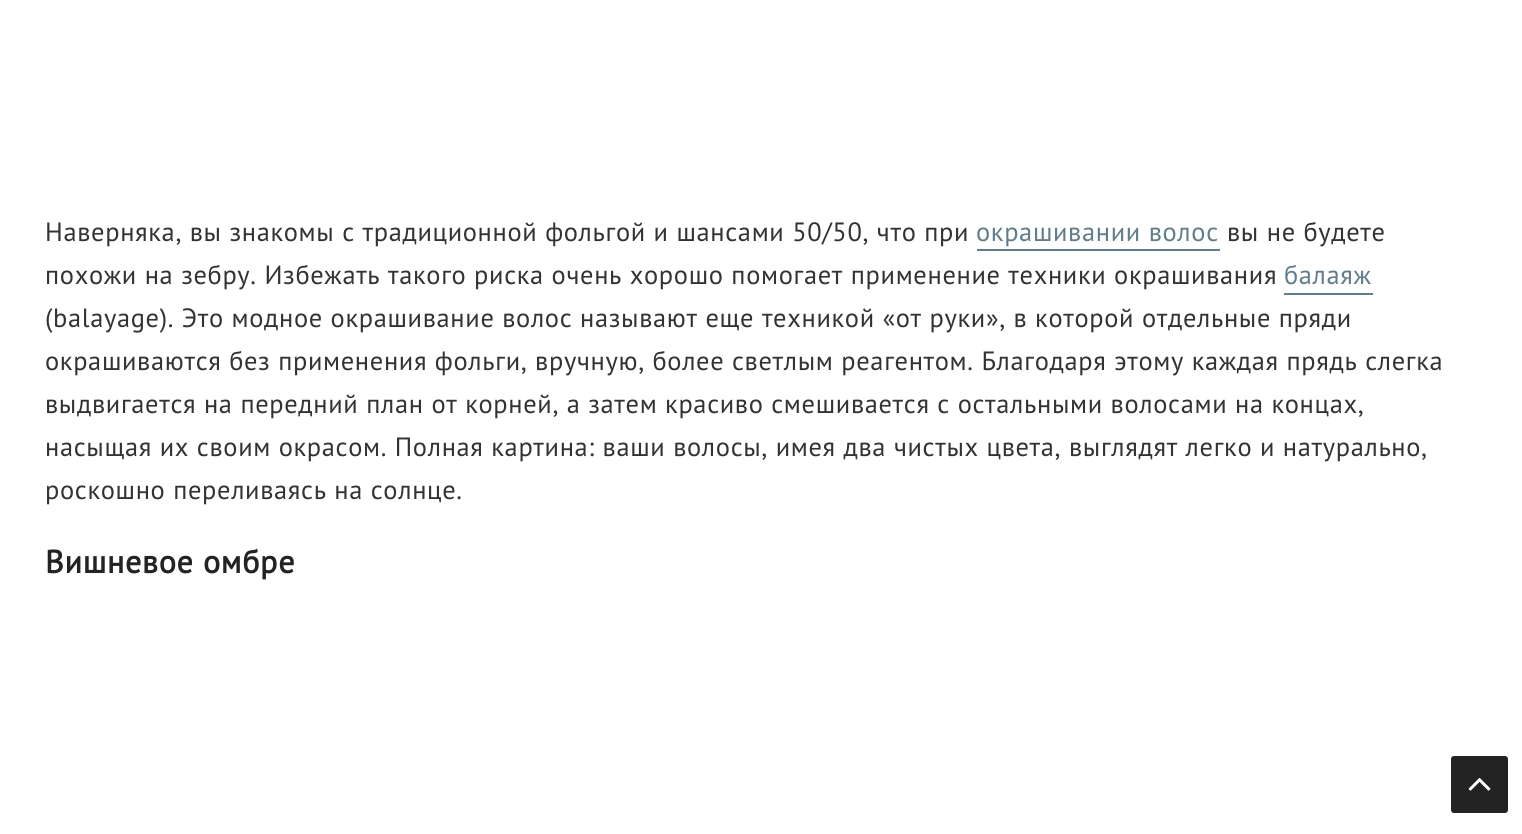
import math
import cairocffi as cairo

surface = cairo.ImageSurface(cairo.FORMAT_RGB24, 1522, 834)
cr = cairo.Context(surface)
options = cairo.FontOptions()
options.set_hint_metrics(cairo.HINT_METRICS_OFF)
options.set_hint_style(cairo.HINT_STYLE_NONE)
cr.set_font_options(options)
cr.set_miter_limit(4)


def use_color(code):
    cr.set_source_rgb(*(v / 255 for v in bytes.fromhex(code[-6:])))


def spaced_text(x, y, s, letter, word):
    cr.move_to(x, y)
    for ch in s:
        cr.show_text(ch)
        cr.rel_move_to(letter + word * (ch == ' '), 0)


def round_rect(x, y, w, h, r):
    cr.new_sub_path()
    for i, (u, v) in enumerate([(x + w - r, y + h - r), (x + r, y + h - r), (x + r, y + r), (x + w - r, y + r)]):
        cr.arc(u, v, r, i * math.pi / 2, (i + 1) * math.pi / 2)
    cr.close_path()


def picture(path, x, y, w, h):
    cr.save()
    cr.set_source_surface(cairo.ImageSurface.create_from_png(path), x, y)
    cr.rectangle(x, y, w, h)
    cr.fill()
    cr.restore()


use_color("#ffffff")
cr.paint()
cr.select_font_face("PT Sans")
cr.set_font_size(26.45)
use_color("#333333")
spaced_text(45, 241, "Наверняка, вы знакомы с традиционной фольгой и шансами 50/50, что при", 0.66, 0)
use_color("#607d8b")
spaced_text(976, 241, "окрашивании волос", 0.66, 0)
cr.rectangle(977, 249, 243, 2)
cr.fill()
use_color("#333333")
spaced_text(1227, 241, "вы не будете", 0.66, 0)
spaced_text(45, 284, "похожи на зебру. Избежать такого риска очень хорошо помогает применение техники окрашивания", 0.66, 0)
use_color("#607d8b")
spaced_text(1284, 284, "балаяж", 0.66, 0)
cr.rectangle(1284, 293, 89, 2)
cr.fill()
use_color("#333333")
spaced_text(45, 327, "(balayage). Это модное окрашивание волос называют еще техникой «от руки», в которой отдельные пряди", 0.66, 0)
spaced_text(45, 370, "окрашиваются без применения фольги, вручную, более светлым реагентом. Благодаря этому каждая прядь слегка", 0.66, 0)
spaced_text(45, 413, "выдвигается на передний план от корней, а затем красиво смешивается с остальными волосами на концах,", 0.66, 0)
spaced_text(45, 456, "насыщая их своим окрасом. Полная картина: ваши волосы, имея два чистых цвета, выглядят легко и натурально,", 0.66, 0)
spaced_text(45, 499, "роскошно переливаясь на солнце.", 0.66, 0)
cr.select_font_face("PT Sans", cairo.FONT_SLANT_NORMAL, cairo.FONT_WEIGHT_BOLD)
cr.set_font_size(32)
use_color("#232323")
spaced_text(45, 573, "Вишневое омбре", 0.75, 0)
round_rect(1451, 756, 57, 57, 3)
cr.fill()
picture("img1.png", 1468, 778, 23, 13)
surface.write_to_png("result.png")
